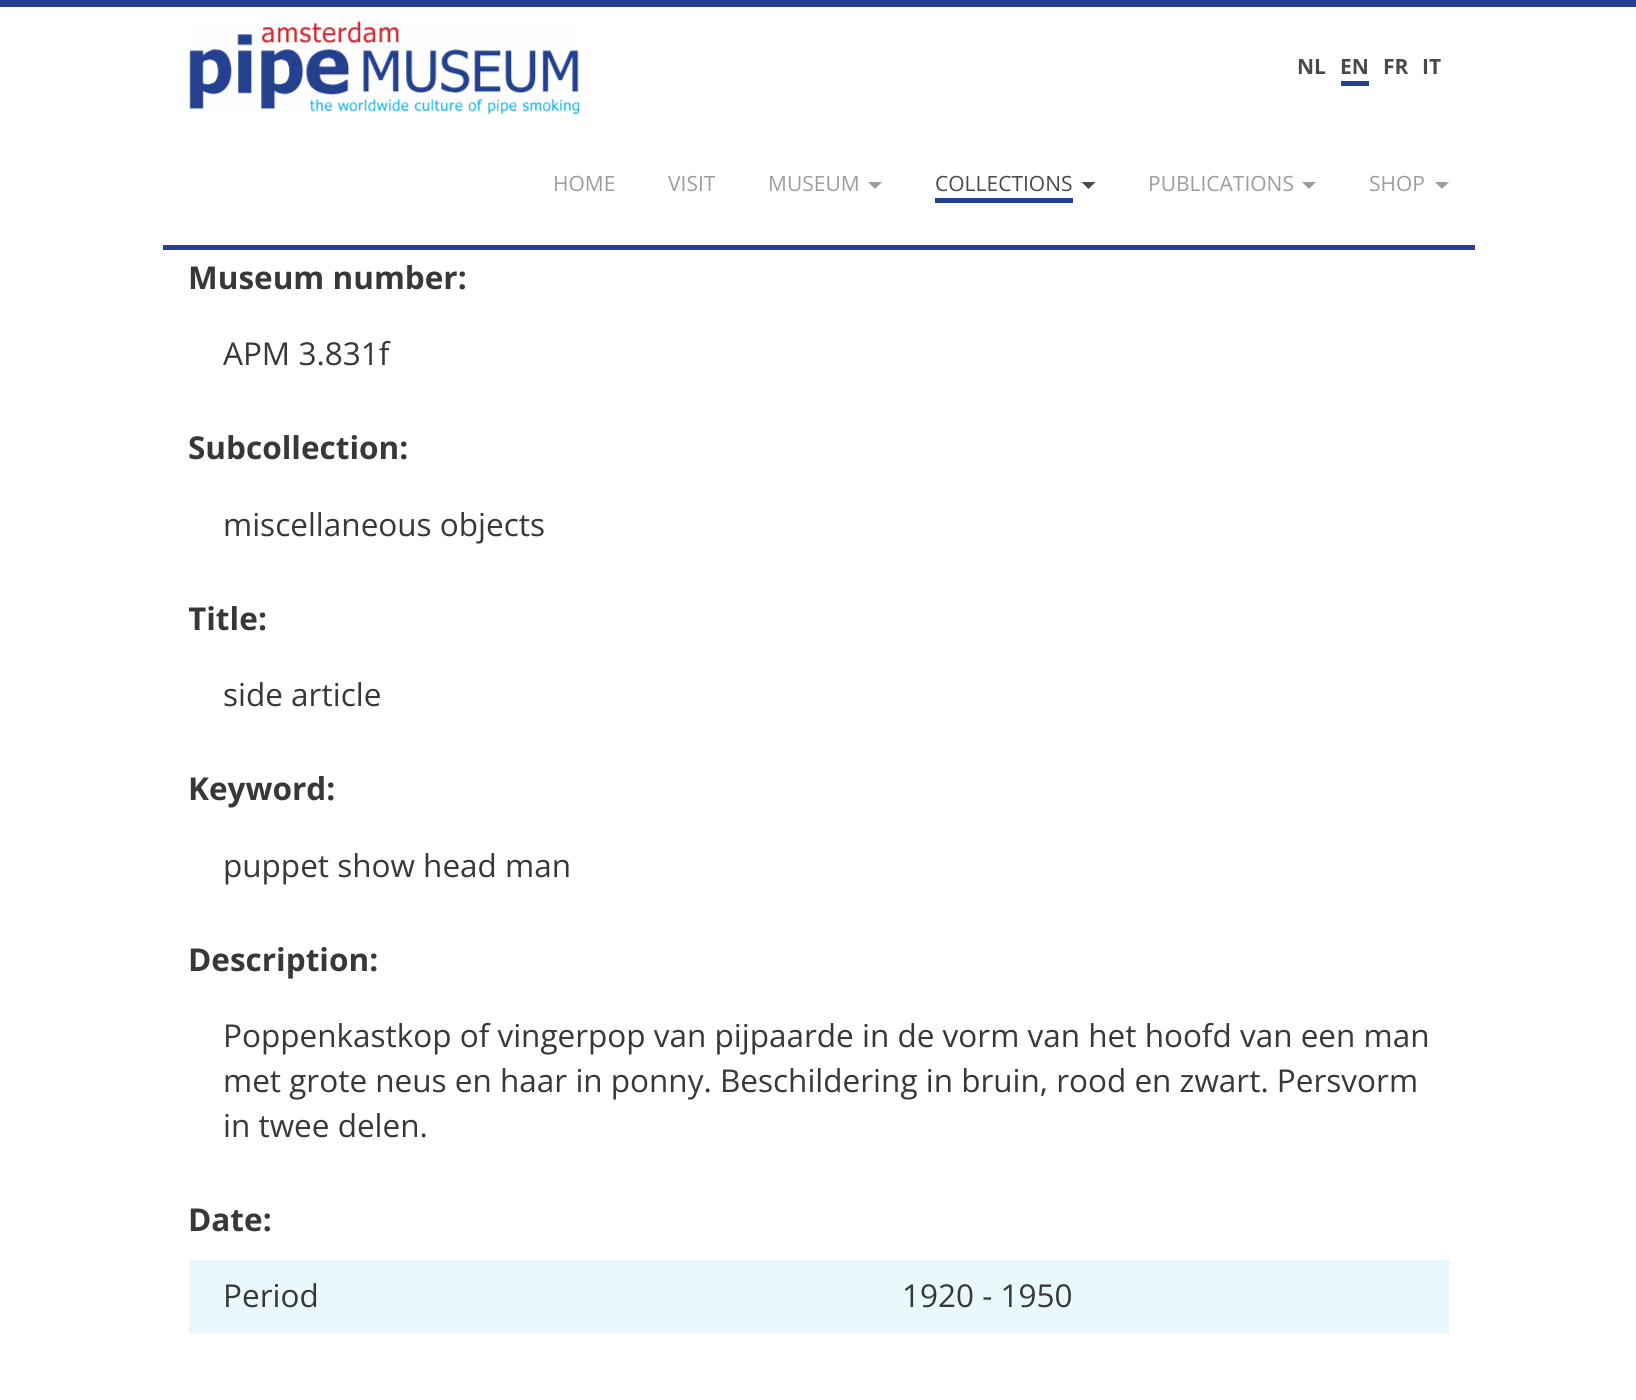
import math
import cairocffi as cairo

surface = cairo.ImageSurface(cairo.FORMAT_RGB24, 1636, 1400)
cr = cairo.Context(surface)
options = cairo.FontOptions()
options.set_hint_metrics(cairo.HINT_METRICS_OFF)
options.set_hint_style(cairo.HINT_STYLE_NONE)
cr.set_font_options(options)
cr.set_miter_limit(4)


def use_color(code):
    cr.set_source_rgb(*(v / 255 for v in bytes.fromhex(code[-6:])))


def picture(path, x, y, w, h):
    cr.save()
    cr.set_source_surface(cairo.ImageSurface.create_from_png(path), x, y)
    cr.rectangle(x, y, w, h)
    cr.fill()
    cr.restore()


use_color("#ffffff")
cr.paint()
use_color("#24408e")
cr.rectangle(0, 0, 1636, 7)
cr.fill()
cr.rectangle(163, 245, 1312, 5)
cr.fill()
picture("img1.png", 189, 21, 391, 94)
cr.select_font_face("Open Sans", cairo.FONT_SLANT_NORMAL, cairo.FONT_WEIGHT_BOLD)
cr.set_font_size(21)
use_color("#4a4a4a")
cr.move_to(1297, 74)
cr.show_text("NL")
cr.move_to(1340, 74)
cr.show_text("EN")
use_color("#24408e")
cr.rectangle(1341, 81, 28, 5)
cr.fill()
use_color("#4a4a4a")
cr.move_to(1383, 74)
cr.show_text("FR")
cr.move_to(1422, 74)
cr.show_text("IT")
cr.select_font_face("Open Sans")
use_color("#9d9d9d")
cr.move_to(553, 191)
cr.show_text("HOME")
cr.move_to(668, 191)
cr.show_text("VISIT")
cr.move_to(768, 191)
cr.show_text("MUSEUM")
cr.new_path()
cr.move_to(868, 182)
cr.line_to(882, 182)
cr.line_to(875, 189)
cr.close_path()
cr.fill()
use_color("#4a4a4a")
cr.move_to(935, 191)
cr.show_text("COLLECTIONS")
use_color("#24408e")
cr.rectangle(935, 198, 138, 5)
cr.fill()
use_color("#4a4a4a")
cr.new_path()
cr.move_to(1081.5, 182)
cr.line_to(1095.5, 182)
cr.line_to(1088.5, 189)
cr.close_path()
cr.fill()
use_color("#9d9d9d")
cr.move_to(1148, 191)
cr.show_text("PUBLICATIONS")
cr.new_path()
cr.move_to(1302, 182)
cr.line_to(1316, 182)
cr.line_to(1309, 189)
cr.close_path()
cr.fill()
cr.move_to(1369, 191)
cr.show_text("SHOP")
cr.new_path()
cr.move_to(1435, 182)
cr.line_to(1449, 182)
cr.line_to(1442, 189)
cr.close_path()
cr.fill()
cr.select_font_face("Open Sans", cairo.FONT_SLANT_NORMAL, cairo.FONT_WEIGHT_BOLD)
cr.set_font_size(31.5)
use_color("#383838")
cr.move_to(188, 289)
cr.show_text("Museum number:")
cr.select_font_face("Open Sans")
cr.move_to(223, 365)
cr.show_text("APM 3.831f")
cr.select_font_face("Open Sans", cairo.FONT_SLANT_NORMAL, cairo.FONT_WEIGHT_BOLD)
cr.move_to(188, 459)
cr.show_text("Subcollection:")
cr.select_font_face("Open Sans")
cr.move_to(223, 536)
cr.show_text("miscellaneous objects")
cr.save()
cr.rectangle(189, 221, 1260, 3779)
cr.clip()
cr.select_font_face("Open Sans", cairo.FONT_SLANT_NORMAL, cairo.FONT_WEIGHT_BOLD)
cr.move_to(188, 630)
cr.show_text("Title")
cr.restore()
cr.select_font_face("Open Sans", cairo.FONT_SLANT_NORMAL, cairo.FONT_WEIGHT_BOLD)
cr.move_to(258, 630)
cr.show_text(":")
cr.select_font_face("Open Sans")
cr.move_to(223, 706)
cr.show_text("side article")
cr.select_font_face("Open Sans", cairo.FONT_SLANT_NORMAL, cairo.FONT_WEIGHT_BOLD)
cr.move_to(188, 800)
cr.show_text("Keyword:")
cr.select_font_face("Open Sans")
cr.move_to(223, 877)
cr.show_text("puppet show head man")
cr.select_font_face("Open Sans", cairo.FONT_SLANT_NORMAL, cairo.FONT_WEIGHT_BOLD)
cr.move_to(188, 971)
cr.show_text("Description:")
cr.select_font_face("Open Sans")
cr.move_to(223, 1047)
cr.show_text("Poppenkastkop of vingerpop van pijpaarde in de vorm van het hoofd van een man")
cr.move_to(223, 1092)
cr.show_text("met grote neus en haar in ponny. Beschildering in bruin, rood en zwart. Persvorm")
cr.move_to(223, 1137)
cr.show_text("in twee delen.")
cr.select_font_face("Open Sans", cairo.FONT_SLANT_NORMAL, cairo.FONT_WEIGHT_BOLD)
cr.move_to(188, 1231)
cr.show_text("Date:")
use_color("#e9f8fe")
cr.rectangle(189, 1260, 1260, 74)
cr.fill()
cr.select_font_face("Open Sans")
use_color("#383838")
cr.move_to(223, 1307)
cr.show_text("Period")
cr.move_to(902, 1307)
cr.show_text("1920 - 1950")
surface.write_to_png("result.png")
